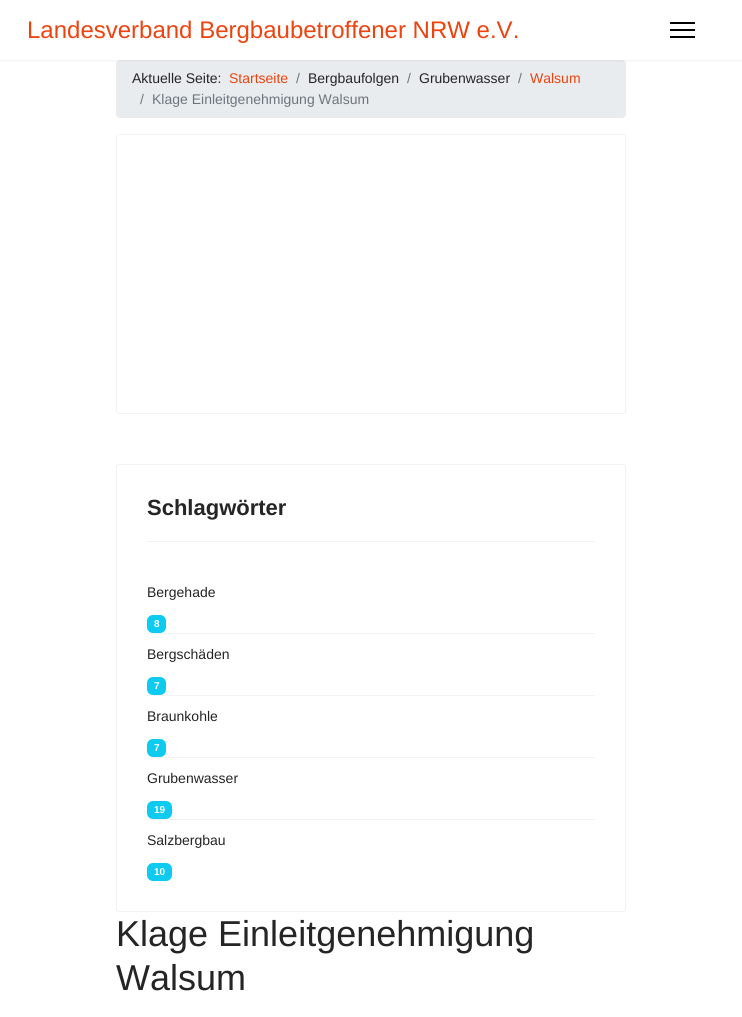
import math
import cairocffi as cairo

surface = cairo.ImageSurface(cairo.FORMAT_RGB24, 742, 1017)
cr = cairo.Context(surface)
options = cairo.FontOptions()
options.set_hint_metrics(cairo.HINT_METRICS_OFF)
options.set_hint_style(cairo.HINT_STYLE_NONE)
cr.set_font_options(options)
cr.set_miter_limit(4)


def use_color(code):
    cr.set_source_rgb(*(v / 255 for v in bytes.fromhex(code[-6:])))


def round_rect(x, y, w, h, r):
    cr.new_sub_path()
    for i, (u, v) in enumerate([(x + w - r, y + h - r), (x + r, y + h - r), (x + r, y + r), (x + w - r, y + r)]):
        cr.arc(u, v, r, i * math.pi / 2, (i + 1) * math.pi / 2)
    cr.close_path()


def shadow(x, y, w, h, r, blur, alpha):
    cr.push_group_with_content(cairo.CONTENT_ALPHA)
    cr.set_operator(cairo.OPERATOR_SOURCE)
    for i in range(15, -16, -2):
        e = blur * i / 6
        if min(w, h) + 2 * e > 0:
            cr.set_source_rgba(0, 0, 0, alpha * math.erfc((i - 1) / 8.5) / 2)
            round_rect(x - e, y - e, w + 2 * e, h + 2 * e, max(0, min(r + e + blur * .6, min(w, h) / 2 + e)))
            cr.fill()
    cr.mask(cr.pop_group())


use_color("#ffffff")
cr.paint()
use_color("#e9ecef")
round_rect(116, 60, 510, 58, 4)
cr.fill()
cr.save()
cr.rectangle(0, 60, 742, 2)
cr.clip()
use_color("#000000")
shadow(0, 0, 742, 60, 0, 2, 0.1)
cr.restore()
cr.select_font_face("Liberation Sans")
cr.set_font_size(24)
use_color("#ec430f")
cr.move_to(27, 38)
cr.show_text("Landesverband Bergbaubetroffener NRW e.V.")
use_color("#000000")
cr.rectangle(670, 22, 25, 2)
cr.fill()
cr.rectangle(670, 29, 25, 2)
cr.fill()
cr.rectangle(670, 36, 25, 2)
cr.fill()
cr.set_font_size(14)
use_color("#252525")
cr.move_to(132, 83)
cr.show_text("Aktuelle Seite:")
use_color("#ec430f")
cr.move_to(229, 83)
cr.show_text("Startseite")
use_color("#6c757d")
cr.move_to(296, 83)
cr.show_text("/")
use_color("#252525")
cr.move_to(308, 83)
cr.show_text("Bergbaufolgen")
use_color("#6c757d")
cr.move_to(407, 83)
cr.show_text("/")
use_color("#252525")
cr.move_to(419, 83)
cr.show_text("Grubenwasser")
use_color("#6c757d")
cr.move_to(518, 83)
cr.show_text("/")
use_color("#ec430f")
cr.move_to(530, 83)
cr.show_text("Walsum")
use_color("#6c757d")
cr.move_to(140, 104)
cr.show_text("/")
cr.move_to(152, 104)
cr.show_text("Klage Einleitgenehmigung Walsum")
round_rect(116.5, 134.5, 509, 279, 2.5)
use_color("#f3f3f3")
cr.set_line_width(1)
cr.stroke()
round_rect(116.5, 464.5, 509, 447, 2.5)
cr.stroke()
cr.rectangle(147, 541, 448, 1)
cr.fill()
cr.select_font_face("Liberation Sans", cairo.FONT_SLANT_NORMAL, cairo.FONT_WEIGHT_BOLD)
cr.set_font_size(22)
use_color("#252525")
cr.move_to(147, 515)
cr.show_text("Schlagwörter")
use_color("#f3f3f3")
cr.rectangle(147, 633, 448, 1)
cr.fill()
cr.select_font_face("Liberation Sans")
cr.set_font_size(14)
use_color("#252525")
cr.move_to(147, 597)
cr.show_text("Bergehade")
use_color("#0dcaf0")
round_rect(147, 615, 19, 18, 6)
cr.fill()
cr.select_font_face("Liberation Sans", cairo.FONT_SLANT_NORMAL, cairo.FONT_WEIGHT_BOLD)
cr.set_font_size(10)
use_color("#ffffff")
cr.move_to(154, 627)
cr.show_text("8")
use_color("#f3f3f3")
cr.rectangle(147, 695, 448, 1)
cr.fill()
cr.select_font_face("Liberation Sans")
cr.set_font_size(14)
use_color("#252525")
cr.move_to(147, 659)
cr.show_text("Bergschäden")
use_color("#0dcaf0")
round_rect(147, 677, 19, 18, 6)
cr.fill()
cr.select_font_face("Liberation Sans", cairo.FONT_SLANT_NORMAL, cairo.FONT_WEIGHT_BOLD)
cr.set_font_size(10)
use_color("#ffffff")
cr.move_to(154, 689)
cr.show_text("7")
use_color("#f3f3f3")
cr.rectangle(147, 757, 448, 1)
cr.fill()
cr.select_font_face("Liberation Sans")
cr.set_font_size(14)
use_color("#252525")
cr.move_to(147, 721)
cr.show_text("Braunkohle")
use_color("#0dcaf0")
round_rect(147, 739, 19, 18, 6)
cr.fill()
cr.select_font_face("Liberation Sans", cairo.FONT_SLANT_NORMAL, cairo.FONT_WEIGHT_BOLD)
cr.set_font_size(10)
use_color("#ffffff")
cr.move_to(154, 751)
cr.show_text("7")
use_color("#f3f3f3")
cr.rectangle(147, 819, 448, 1)
cr.fill()
cr.select_font_face("Liberation Sans")
cr.set_font_size(14)
use_color("#252525")
cr.move_to(147, 783)
cr.show_text("Grubenwasser")
use_color("#0dcaf0")
round_rect(147, 801, 25, 18, 6)
cr.fill()
cr.select_font_face("Liberation Sans", cairo.FONT_SLANT_NORMAL, cairo.FONT_WEIGHT_BOLD)
cr.set_font_size(10)
use_color("#ffffff")
cr.move_to(154, 813)
cr.show_text("19")
cr.select_font_face("Liberation Sans")
cr.set_font_size(14)
use_color("#252525")
cr.move_to(147, 845)
cr.show_text("Salzbergbau")
use_color("#0dcaf0")
round_rect(147, 863, 25, 18, 6)
cr.fill()
cr.select_font_face("Liberation Sans", cairo.FONT_SLANT_NORMAL, cairo.FONT_WEIGHT_BOLD)
cr.set_font_size(10)
use_color("#ffffff")
cr.move_to(154, 875)
cr.show_text("10")
cr.select_font_face("Liberation Sans")
cr.set_font_size(36)
use_color("#252525")
cr.move_to(116, 946)
cr.show_text("Klage Einleitgenehmigung")
cr.move_to(116, 990)
cr.show_text("Walsum")
surface.write_to_png("result.png")
